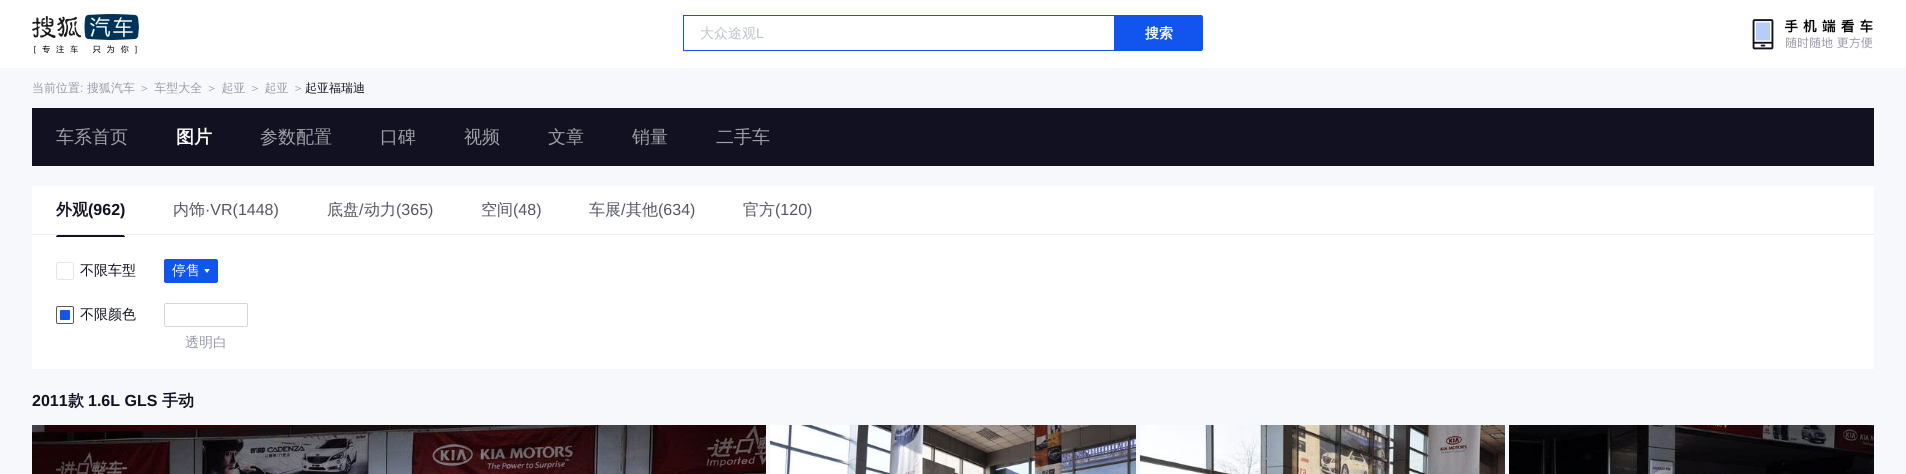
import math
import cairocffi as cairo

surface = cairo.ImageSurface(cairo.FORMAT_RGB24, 1906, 474)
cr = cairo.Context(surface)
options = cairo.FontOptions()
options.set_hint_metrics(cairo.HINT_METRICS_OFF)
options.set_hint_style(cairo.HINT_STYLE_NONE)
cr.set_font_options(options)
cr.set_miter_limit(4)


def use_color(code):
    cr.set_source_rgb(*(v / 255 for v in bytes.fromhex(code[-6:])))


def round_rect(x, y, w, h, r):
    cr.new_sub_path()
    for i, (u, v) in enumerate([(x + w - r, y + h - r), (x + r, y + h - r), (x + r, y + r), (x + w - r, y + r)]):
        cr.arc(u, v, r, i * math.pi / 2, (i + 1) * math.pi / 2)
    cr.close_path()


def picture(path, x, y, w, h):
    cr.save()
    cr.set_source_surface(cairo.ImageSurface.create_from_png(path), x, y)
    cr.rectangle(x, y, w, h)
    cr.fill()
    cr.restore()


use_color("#f7f8fc")
cr.paint()
use_color("#ffffff")
cr.rectangle(0, 0, 1906, 68)
cr.fill()
picture("img1.png", 32, 14, 107, 40)
cr.rectangle(683.5, 15.5, 431, 35)
use_color("#1155ee")
cr.set_line_width(1)
cr.stroke()
cr.select_font_face("WenQuanYi Zen Hei Medium")
cr.set_font_size(14)
use_color("#bbc2cc")
cr.move_to(700, 38)
cr.show_text("大众途观")
cr.select_font_face("Liberation Sans")
cr.move_to(756, 38)
cr.show_text("L")
use_color("#1155ee")
cr.new_path()
cr.move_to(1115, 15)
cr.line_to(1201, 15)
cr.curve_to(1202, 15, 1203, 16, 1203, 17)
cr.line_to(1203, 49)
cr.curve_to(1203, 50, 1202, 51, 1201, 51)
cr.line_to(1115, 51)
cr.close_path()
cr.fill()
cr.select_font_face("WenQuanYi Zen Hei", cairo.FONT_SLANT_NORMAL, cairo.FONT_WEIGHT_BOLD)
use_color("#ffffff")
cr.move_to(1145, 38)
cr.show_text("搜索")
picture("img2.png", 1752, 19, 121, 31)
cr.select_font_face("WenQuanYi Zen Hei Medium")
cr.set_font_size(12)
use_color("#9999aa")
cr.move_to(32, 92)
cr.show_text("当前位置")
cr.select_font_face("Liberation Sans")
cr.move_to(80, 92)
cr.show_text(":")
cr.select_font_face("WenQuanYi Zen Hei Medium")
cr.move_to(87, 92)
cr.show_text("搜狐汽车 ＞ 车型大全 ＞ 起亚 ＞ 起亚 ＞")
use_color("#111122")
cr.move_to(305, 92)
cr.show_text("起亚福瑞迪")
cr.rectangle(32, 108, 1842, 58)
cr.fill()
cr.set_font_size(18)
use_color("#a0a0a7")
cr.move_to(56, 143)
cr.show_text("车系首页")
cr.select_font_face("WenQuanYi Zen Hei", cairo.FONT_SLANT_NORMAL, cairo.FONT_WEIGHT_BOLD)
use_color("#ffffff")
cr.move_to(176, 143)
cr.show_text("图片")
cr.select_font_face("WenQuanYi Zen Hei Medium")
use_color("#a0a0a7")
cr.move_to(260, 143)
cr.show_text("参数配置")
cr.move_to(380, 143)
cr.show_text("口碑")
cr.move_to(464, 143)
cr.show_text("视频")
cr.move_to(548, 143)
cr.show_text("文章")
cr.move_to(632, 143)
cr.show_text("销量")
cr.move_to(716, 143)
cr.show_text("二手车")
use_color("#ffffff")
cr.rectangle(32, 186, 1842, 183)
cr.fill()
use_color("#eeeef0")
cr.rectangle(32, 234, 1842, 1)
cr.fill()
cr.select_font_face("WenQuanYi Zen Hei", cairo.FONT_SLANT_NORMAL, cairo.FONT_WEIGHT_BOLD)
cr.set_font_size(16)
use_color("#111122")
cr.move_to(56, 215)
cr.show_text("外观")
cr.select_font_face("Liberation Sans", cairo.FONT_SLANT_NORMAL, cairo.FONT_WEIGHT_BOLD)
cr.move_to(88, 215)
cr.show_text("(962)")
cr.new_path()
cr.move_to(58, 235)
cr.line_to(123, 235)
cr.curve_to(124, 235, 125, 236, 125, 237)
cr.line_to(56, 237)
cr.curve_to(56, 236, 57, 235, 58, 235)
cr.close_path()
cr.fill()
cr.select_font_face("WenQuanYi Zen Hei Medium")
use_color("#555566")
cr.move_to(173, 215)
cr.show_text("内饰")
cr.select_font_face("Liberation Sans")
cr.move_to(205, 215)
cr.show_text("·VR(1448)")
cr.select_font_face("WenQuanYi Zen Hei Medium")
cr.move_to(327, 215)
cr.show_text("底盘")
cr.select_font_face("Liberation Sans")
cr.move_to(359, 215)
cr.show_text("/")
cr.select_font_face("WenQuanYi Zen Hei Medium")
cr.move_to(364, 215)
cr.show_text("动力")
cr.select_font_face("Liberation Sans")
cr.move_to(396, 215)
cr.show_text("(365)")
cr.select_font_face("WenQuanYi Zen Hei Medium")
cr.move_to(481, 215)
cr.show_text("空间")
cr.select_font_face("Liberation Sans")
cr.move_to(513, 215)
cr.show_text("(48)")
cr.select_font_face("WenQuanYi Zen Hei Medium")
cr.move_to(589, 215)
cr.show_text("车展")
cr.select_font_face("Liberation Sans")
cr.move_to(621, 215)
cr.show_text("/")
cr.select_font_face("WenQuanYi Zen Hei Medium")
cr.move_to(626, 215)
cr.show_text("其他")
cr.select_font_face("Liberation Sans")
cr.move_to(658, 215)
cr.show_text("(634)")
cr.select_font_face("WenQuanYi Zen Hei Medium")
cr.move_to(743, 215)
cr.show_text("官方")
cr.select_font_face("Liberation Sans")
cr.move_to(775, 215)
cr.show_text("(120)")
round_rect(56.5, 262.5, 17, 17, 1.5)
use_color("#e5e5ee")
cr.stroke()
cr.select_font_face("WenQuanYi Zen Hei Medium")
cr.set_font_size(14)
use_color("#111122")
cr.move_to(80, 275)
cr.show_text("不限车型")
use_color("#1155ee")
round_rect(164, 259, 54, 24, 2)
cr.fill()
use_color("#ffffff")
cr.move_to(172, 275)
cr.show_text("停售")
picture("img3.png", 204, 269, 6, 4)
round_rect(56.5, 306.5, 17, 17, 1.5)
use_color("#555566")
cr.stroke()
use_color("#1155ee")
round_rect(60, 310, 10, 10, 1)
cr.fill()
use_color("#111122")
cr.move_to(80, 319)
cr.show_text("不限颜色")
round_rect(164.5, 303.5, 83, 23, 1.5)
use_color("#d5d5e2")
cr.stroke()
use_color("#9999aa")
cr.move_to(185, 347)
cr.show_text("透明白")
cr.select_font_face("Liberation Sans", cairo.FONT_SLANT_NORMAL, cairo.FONT_WEIGHT_BOLD)
cr.set_font_size(16)
use_color("#111122")
cr.move_to(32, 406)
cr.show_text("2011")
cr.select_font_face("WenQuanYi Zen Hei", cairo.FONT_SLANT_NORMAL, cairo.FONT_WEIGHT_BOLD)
cr.move_to(68, 406)
cr.show_text("款")
cr.select_font_face("Liberation Sans", cairo.FONT_SLANT_NORMAL, cairo.FONT_WEIGHT_BOLD)
cr.move_to(88, 406)
cr.show_text("1.6L GLS")
cr.select_font_face("WenQuanYi Zen Hei", cairo.FONT_SLANT_NORMAL, cairo.FONT_WEIGHT_BOLD)
cr.move_to(162, 406)
cr.show_text("手动")
picture("img4.png", 32, 425, 734, 49)
picture("img5.png", 770, 425, 366, 49)
picture("img6.png", 1140, 425, 365, 49)
picture("img7.png", 1509, 425, 365, 49)
surface.write_to_png("result.png")
